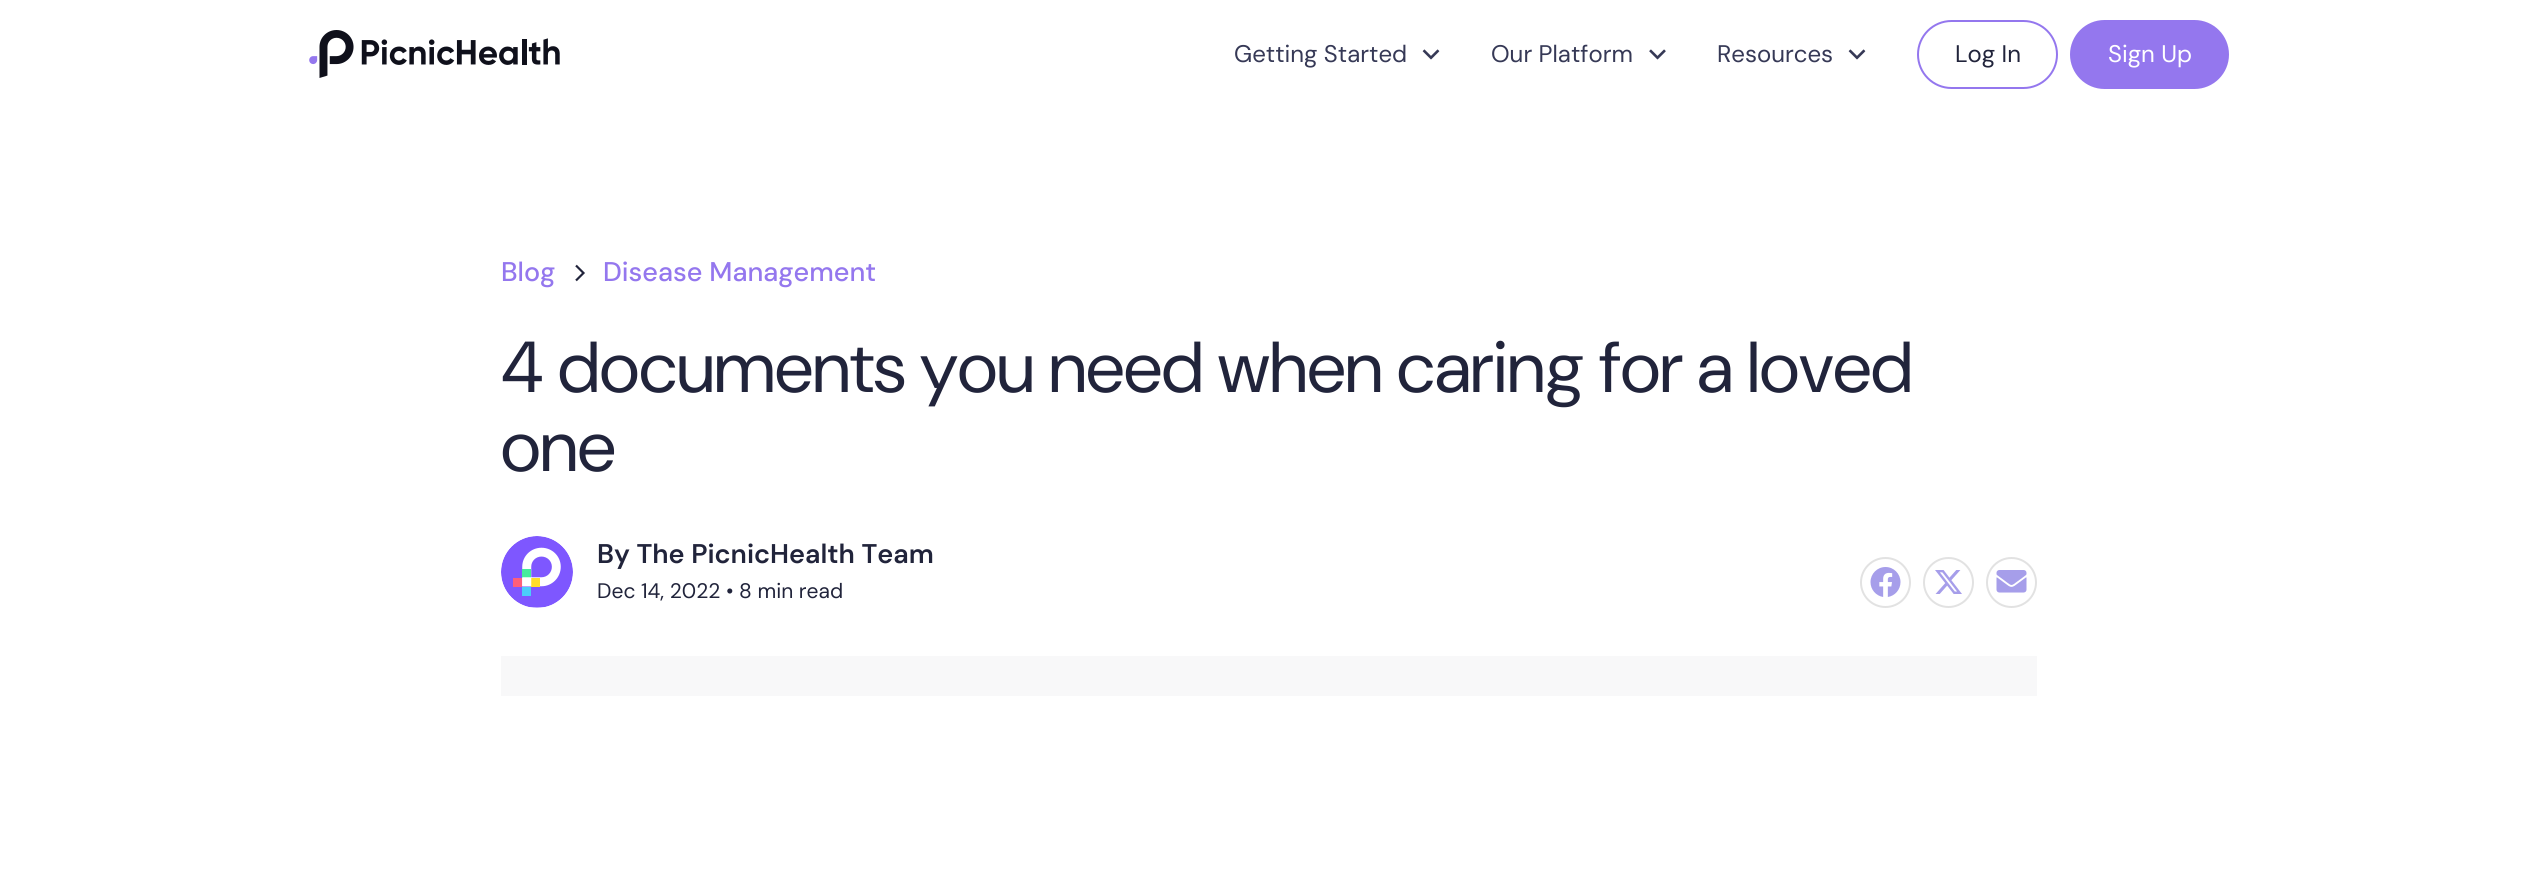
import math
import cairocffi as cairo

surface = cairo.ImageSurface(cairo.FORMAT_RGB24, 2538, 888)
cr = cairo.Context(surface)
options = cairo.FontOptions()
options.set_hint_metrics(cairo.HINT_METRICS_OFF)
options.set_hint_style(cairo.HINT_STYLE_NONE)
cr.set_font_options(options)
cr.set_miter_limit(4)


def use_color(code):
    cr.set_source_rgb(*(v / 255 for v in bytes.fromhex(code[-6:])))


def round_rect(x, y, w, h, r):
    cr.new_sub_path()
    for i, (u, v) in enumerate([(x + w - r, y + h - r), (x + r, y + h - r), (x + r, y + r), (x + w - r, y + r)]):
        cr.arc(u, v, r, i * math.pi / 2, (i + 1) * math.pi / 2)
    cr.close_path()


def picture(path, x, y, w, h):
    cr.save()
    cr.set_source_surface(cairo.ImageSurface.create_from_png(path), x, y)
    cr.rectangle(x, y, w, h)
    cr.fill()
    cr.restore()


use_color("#ffffff")
cr.paint()
picture("img1.png", 309, 30, 251, 48)
cr.select_font_face("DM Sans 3")
cr.set_font_size(24)
use_color("#363956")
cr.move_to(1234, 62)
cr.show_text("Getting Started")
picture("img2.png", 1422, 49, 18, 11)
cr.move_to(1491, 62)
cr.show_text("Our Platform")
picture("img3.png", 1649, 49, 17, 11)
cr.move_to(1717, 62)
cr.show_text("Resources")
picture("img2.png", 1848, 49, 18, 11)
round_rect(1918, 21, 139, 67, 33.5)
use_color("#9477ee")
cr.stroke()
use_color("#21243b")
cr.move_to(1955, 62)
cr.show_text("Log In")
use_color("#9477ee")
round_rect(2071, 21, 157, 67, 33.5)
cr.fill_preserve()
cr.stroke()
use_color("#ffffff")
cr.move_to(2108, 62)
cr.show_text("Sign Up")
cr.select_font_face("DM Sans Medium")
cr.set_font_size(27)
use_color("#9477ee")
cr.move_to(501, 281)
cr.show_text("Blog")
cr.new_path()
cr.move_to(576, 265.5)
cr.line_to(583.5, 273)
cr.line_to(576, 280.5)
use_color("#21243b")
cr.set_line_width(2.2)
cr.stroke()
use_color("#9477ee")
cr.move_to(603, 281)
cr.show_text("Disease Management")
cr.select_font_face("DM Sans")
cr.set_font_size(72)
use_color("#21243b")
cr.move_to(501, 392)
cr.show_text("4 documents you need when caring for a loved")
cr.move_to(501, 471)
cr.show_text("one")
picture("img4.png", 501, 536, 72, 72)
cr.select_font_face("DM Sans SemiBold")
cr.set_font_size(27)
cr.move_to(597, 563)
cr.show_text("By The PicnicHealth Team")
cr.select_font_face("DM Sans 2")
cr.set_font_size(21)
cr.move_to(597, 598)
cr.show_text("Dec 14, 2022 • 8 min read")
cr.new_path()
cr.arc(1885.5, 582.5, 24.5, 0, 2 * math.pi)
use_color("#e2e2e2")
cr.set_line_width(2)
cr.stroke()
picture("img5.png", 1870, 567, 31, 30)
cr.arc(1948.5, 582.5, 24.5, 0, 2 * math.pi)
cr.stroke()
picture("img6.png", 1935, 570, 27, 24)
cr.arc(2011.5, 582.5, 24.5, 0, 2 * math.pi)
cr.stroke()
picture("img7.png", 1996, 570, 31, 23)
use_color("#f8f8f9")
cr.rectangle(501, 656, 1536, 40)
cr.fill()
surface.write_to_png("result.png")
